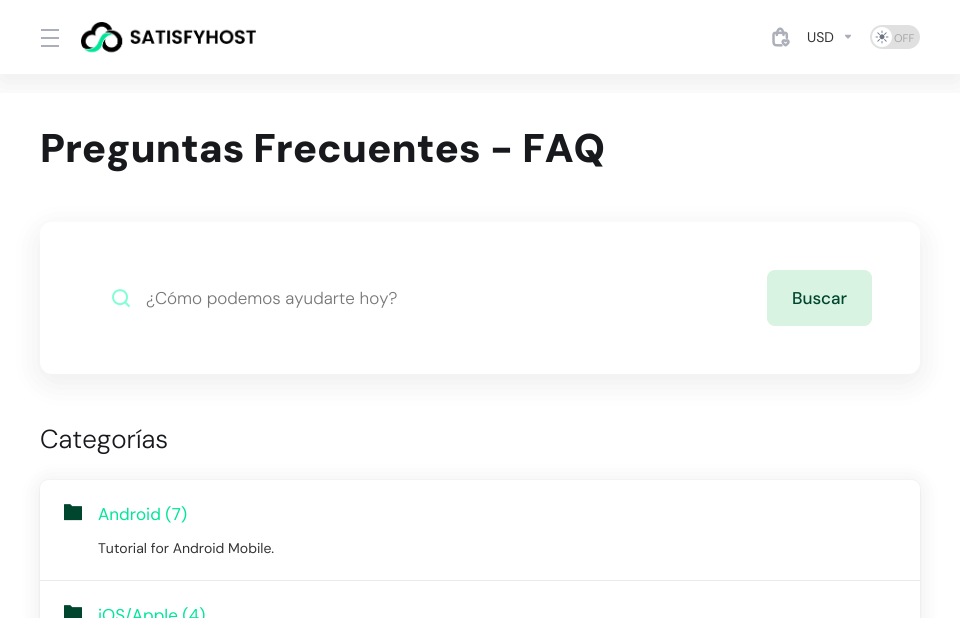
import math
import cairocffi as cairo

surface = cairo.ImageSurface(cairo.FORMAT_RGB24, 960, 618)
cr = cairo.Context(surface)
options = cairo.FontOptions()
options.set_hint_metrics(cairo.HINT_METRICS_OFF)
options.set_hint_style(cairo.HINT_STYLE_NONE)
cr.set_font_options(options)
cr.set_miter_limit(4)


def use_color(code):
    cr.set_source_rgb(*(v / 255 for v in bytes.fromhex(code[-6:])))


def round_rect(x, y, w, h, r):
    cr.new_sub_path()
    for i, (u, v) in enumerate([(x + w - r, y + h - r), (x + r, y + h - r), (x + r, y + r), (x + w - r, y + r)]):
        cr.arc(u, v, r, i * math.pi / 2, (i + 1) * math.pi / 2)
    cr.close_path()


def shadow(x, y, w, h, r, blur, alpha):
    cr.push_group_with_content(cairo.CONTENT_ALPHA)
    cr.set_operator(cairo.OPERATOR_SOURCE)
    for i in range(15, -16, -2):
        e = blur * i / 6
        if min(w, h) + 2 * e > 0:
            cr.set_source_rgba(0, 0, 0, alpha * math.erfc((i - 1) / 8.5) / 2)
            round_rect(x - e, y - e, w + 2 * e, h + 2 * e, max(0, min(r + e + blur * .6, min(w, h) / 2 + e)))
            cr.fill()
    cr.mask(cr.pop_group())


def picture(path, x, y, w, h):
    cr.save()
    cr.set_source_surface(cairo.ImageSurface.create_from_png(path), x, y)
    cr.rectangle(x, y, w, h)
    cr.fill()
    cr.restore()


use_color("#ffffff")
cr.paint()
cr.save()
cr.rectangle(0, 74, 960, 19)
cr.clip()
use_color("#000000")
shadow(0, 8, 960, 74, 0, 16, 0.08)
cr.restore()
use_color("#acafb9")
cr.rectangle(41, 29, 18, 2)
cr.fill()
cr.rectangle(41, 37, 18, 2)
cr.fill()
cr.rectangle(41, 45, 18, 2)
cr.fill()
picture("img1.png", 81, 22, 175, 31)
picture("img2.png", 772, 27, 18, 20)
cr.select_font_face("DM Sans")
cr.set_font_size(14)
use_color("#333333")
cr.move_to(807, 42)
cr.show_text("USD")
picture("img3.png", 845, 34, 6, 5)
use_color("#e0e0e0")
round_rect(870, 25, 50, 24, 12)
cr.fill()
use_color("#ffffff")
cr.arc(882, 37, 10, 0, 2 * math.pi)
cr.fill()
picture("img4.png", 875, 30, 14, 14)
cr.set_font_size(11)
use_color("#a6a6a6")
cr.move_to(894, 42)
cr.show_text("OFF")
cr.select_font_face("DM Sans Black")
cr.set_font_size(40)
use_color("#17191c")
cr.move_to(40, 162)
cr.show_text("Preguntas Frecuentes - FAQ")
cr.save()
cr.set_fill_rule(cairo.FILL_RULE_EVEN_ODD)
cr.new_path()
cr.move_to(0, 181)
cr.line_to(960, 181)
cr.line_to(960, 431)
cr.line_to(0, 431)
cr.close_path()
cr.move_to(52, 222)
cr.line_to(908, 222)
cr.curve_to(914.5, 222, 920, 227.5, 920, 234)
cr.line_to(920, 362)
cr.curve_to(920, 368.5, 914.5, 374, 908, 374)
cr.line_to(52, 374)
cr.curve_to(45.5, 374, 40, 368.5, 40, 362)
cr.line_to(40, 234)
cr.curve_to(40, 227.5, 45.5, 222, 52, 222)
cr.close_path()
cr.clip()
use_color("#000000")
shadow(40, 230, 880, 152, 12, 16, 0.08)
cr.restore()
picture("img5.png", 112, 289, 18, 19)
cr.select_font_face("DM Sans Light")
cr.set_font_size(17)
use_color("#777777")
cr.move_to(146, 304)
cr.show_text("¿Cómo podemos ayudarte hoy?")
use_color("#d8f3e1")
round_rect(767.5, 270.5, 104, 55, 7.5)
cr.fill_preserve()
cr.set_line_width(1)
cr.stroke()
cr.select_font_face("DM Sans Medium")
use_color("#00452e")
cr.move_to(792, 304)
cr.show_text("Buscar")
use_color("#000000")
shadow(40, 482, 880, 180, 8, 12, 0.08)
cr.select_font_face("DM Sans Light")
cr.set_font_size(26)
use_color("#17191c")
cr.move_to(40, 448)
cr.show_text("Categorías")
use_color("#000000")
shadow(40, 480, 880, 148, 8, 0.5, 0.1)
use_color("#ffffff")
round_rect(40, 480, 880, 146, 8)
cr.fill()
use_color("#e9eaec")
cr.rectangle(40, 580, 880, 1)
cr.fill()
picture("img6.png", 64, 504, 18, 17)
cr.select_font_face("DM Sans")
cr.set_font_size(17)
use_color("#00e599")
cr.move_to(98, 520)
cr.show_text("Android (7)")
cr.set_font_size(14)
use_color("#333333")
cr.move_to(98, 553)
cr.show_text("Tutorial for Android Mobile.")
picture("img7.png", 64, 605, 18, 13)
cr.set_font_size(17)
use_color("#00e599")
cr.move_to(98, 621)
cr.show_text("iOS/Apple (4)")
surface.write_to_png("result.png")
